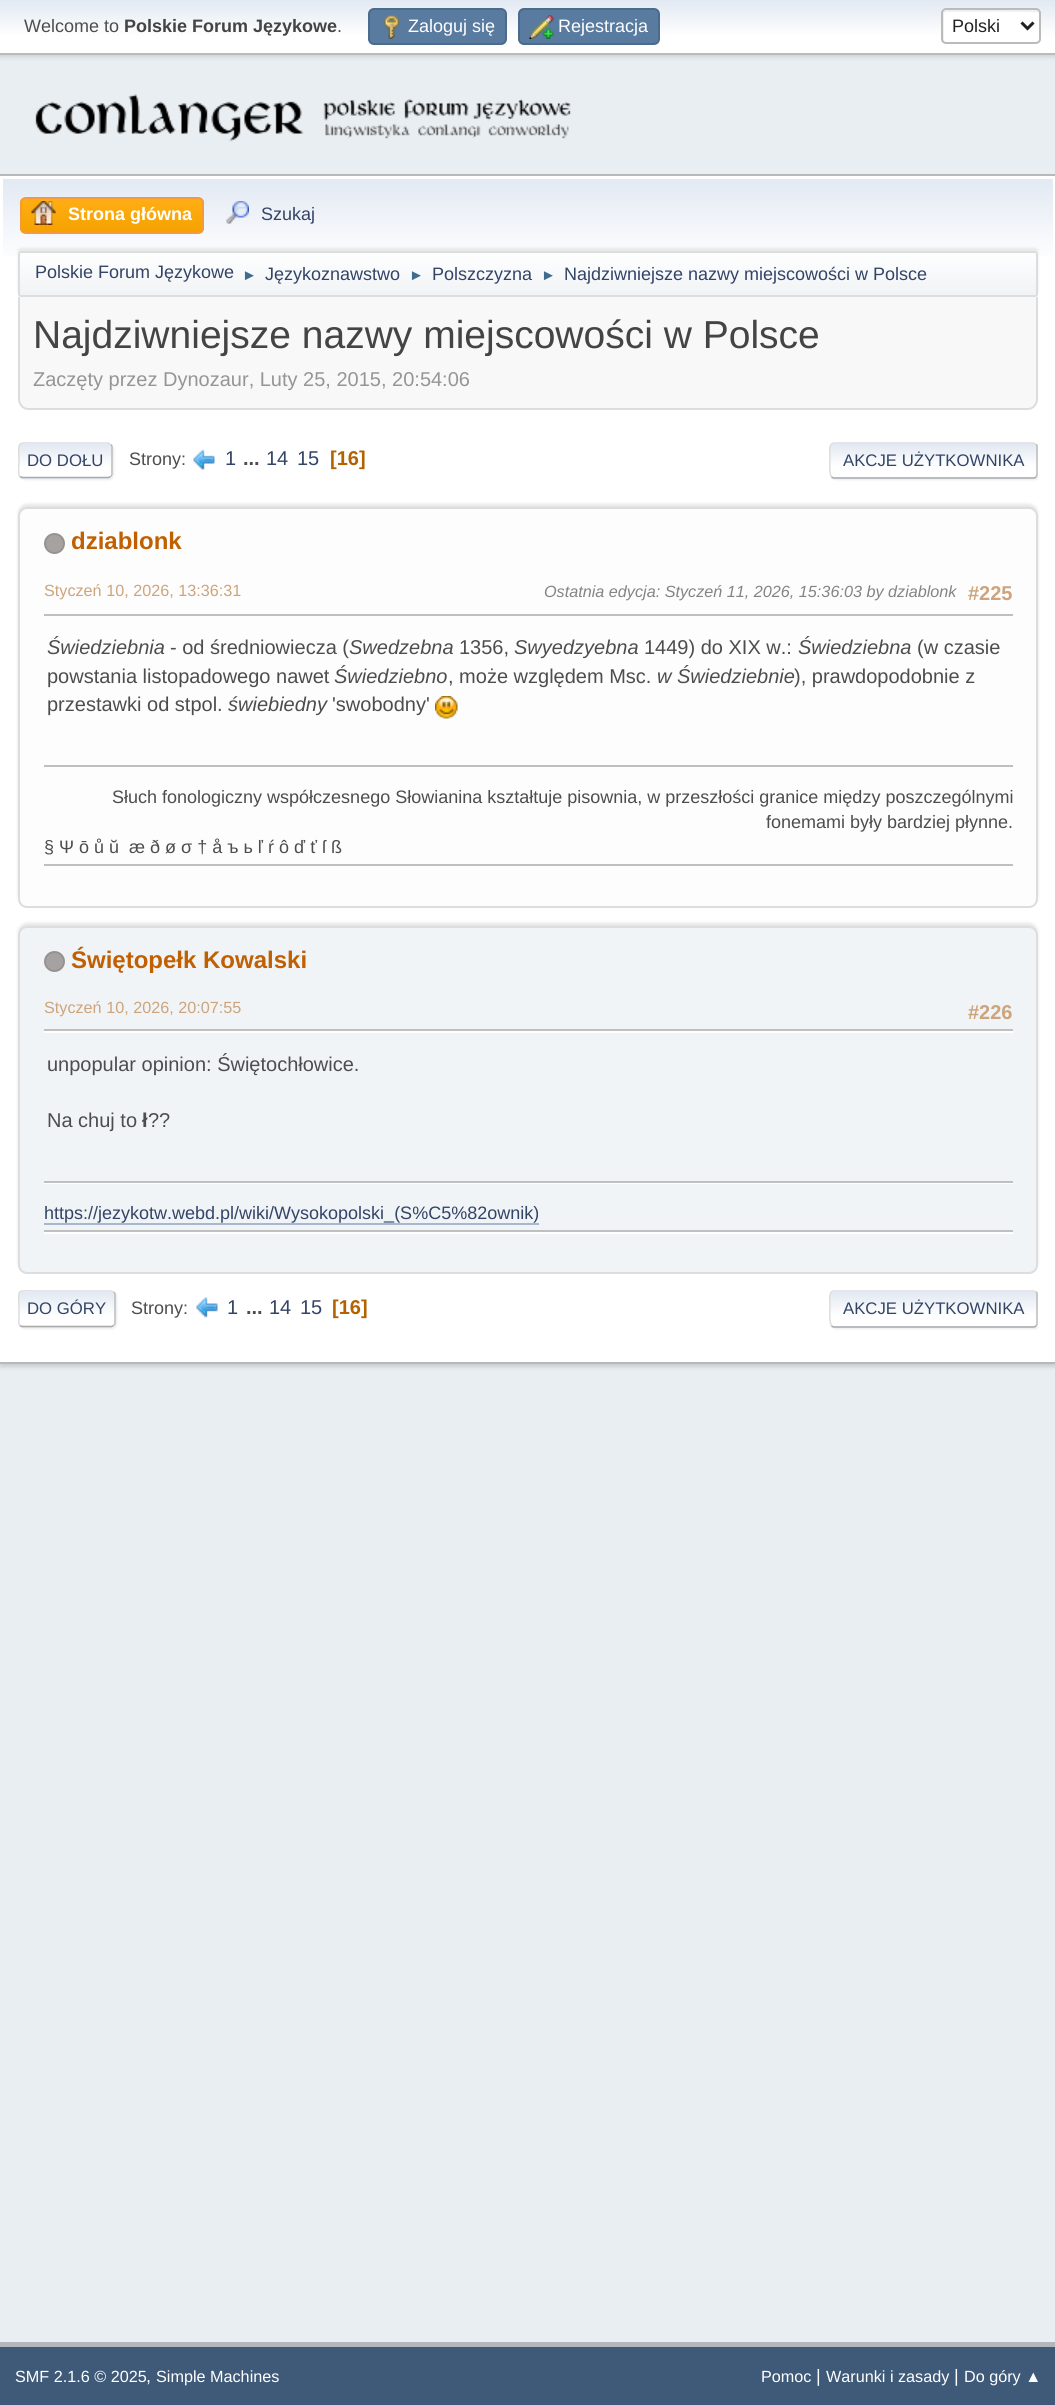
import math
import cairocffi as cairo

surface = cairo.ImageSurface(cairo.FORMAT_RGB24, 1055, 2405)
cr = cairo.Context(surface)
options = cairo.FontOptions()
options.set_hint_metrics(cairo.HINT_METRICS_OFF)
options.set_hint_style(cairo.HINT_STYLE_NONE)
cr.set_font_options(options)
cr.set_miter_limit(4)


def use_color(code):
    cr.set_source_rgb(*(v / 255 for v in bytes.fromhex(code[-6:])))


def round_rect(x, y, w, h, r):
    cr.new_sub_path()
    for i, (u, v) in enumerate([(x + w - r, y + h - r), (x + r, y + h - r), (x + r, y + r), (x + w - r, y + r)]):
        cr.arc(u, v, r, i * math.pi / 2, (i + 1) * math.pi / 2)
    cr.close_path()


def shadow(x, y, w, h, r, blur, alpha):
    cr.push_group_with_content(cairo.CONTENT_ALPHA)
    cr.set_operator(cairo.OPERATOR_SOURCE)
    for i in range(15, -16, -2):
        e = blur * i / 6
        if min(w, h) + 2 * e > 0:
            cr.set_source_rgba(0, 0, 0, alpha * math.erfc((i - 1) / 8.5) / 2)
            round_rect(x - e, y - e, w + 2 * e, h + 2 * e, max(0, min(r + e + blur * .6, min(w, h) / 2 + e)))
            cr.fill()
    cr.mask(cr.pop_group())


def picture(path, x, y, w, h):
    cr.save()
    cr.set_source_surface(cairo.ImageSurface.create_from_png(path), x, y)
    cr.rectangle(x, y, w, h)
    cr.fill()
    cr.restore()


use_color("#e9eef2")
cr.paint()
use_color("#000000")
shadow(0, 2, 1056, 54, 0, 3, 0.16)
gradient = cairo.LinearGradient(528, 0, 528, 53)
gradient.add_color_stop_rgba(0, 0.886, 0.914, 0.953, 1)
gradient.add_color_stop_rgba(0.7, 1, 1, 1, 1)
cr.set_source(gradient)
cr.rectangle(0, 0, 1055, 53)
cr.fill()
use_color("#bbbbbb")
cr.rectangle(0, 53, 1055, 2)
cr.fill()
cr.select_font_face("Liberation Sans")
cr.set_font_size(18)
use_color("#4d4d4d")
cr.move_to(24, 32)
cr.show_text("Welcome to")
cr.select_font_face("Liberation Sans", cairo.FONT_SLANT_NORMAL, cairo.FONT_WEIGHT_BOLD)
use_color("#444444")
cr.move_to(124, 32)
cr.show_text("Polskie Forum Językowe")
cr.select_font_face("Liberation Sans")
use_color("#4d4d4d")
cr.move_to(337, 32)
cr.show_text(".")
use_color("#597b9f")
round_rect(369, 9, 137, 35, 5)
cr.fill_preserve()
use_color("#4a6b8c")
cr.stroke()
picture("img1.png", 383, 15, 17, 24)
use_color("#ffffff")
cr.move_to(408, 32)
cr.show_text("Zaloguj się")
use_color("#597b9f")
round_rect(519, 9, 140, 35, 5)
cr.fill_preserve()
use_color("#4a6b8c")
cr.stroke()
picture("img2.png", 529, 15, 25, 24)
use_color("#ffffff")
cr.move_to(558, 32)
cr.show_text("Rejestracja")
round_rect(941, 8, 100, 36, 5)
cr.fill()
use_color("#ecf1f8")
cr.new_path()
cr.move_to(946, 12)
cr.curve_to(956, 12, 1038, 11, 1040, 13)
cr.line_to(1040, 12)
cr.curve_to(1040, 10, 1039, 9, 1037, 9)
cr.line_to(945, 9)
cr.curve_to(943, 9, 942, 10, 942, 12)
cr.line_to(942, 39)
cr.curve_to(942, 40, 943, 41, 944, 42)
cr.line_to(944, 15)
cr.curve_to(944, 13, 945, 12, 946, 12)
cr.close_path()
cr.fill()
round_rect(942, 9, 98, 34, 4)
use_color("#bbbbbb")
cr.stroke()
cr.new_path()
cr.move_to(1021.5, 22.5)
cr.line_to(1027.5, 28.5)
cr.line_to(1033.5, 22.5)
use_color("#222222")
cr.set_line_width(3)
cr.stroke()
cr.move_to(952, 32)
cr.show_text("Polski")
picture("img3.png", 35, 94, 536, 48)
use_color("#000000")
shadow(0, 177, 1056, 1190, 0, 2, 0.14)
use_color("#ffffff")
cr.rectangle(0, 176, 1055, 1186)
cr.fill()
use_color("#b8b8b8")
cr.rectangle(0, 174, 1055, 2)
cr.fill()
cr.rectangle(0, 1362, 1055, 2)
cr.fill()
gradient = cairo.LinearGradient(528, 178, 528, 300)
gradient.add_color_stop_rgba(0, 0.886, 0.914, 0.953, 1)
gradient.add_color_stop_rgba(0.7, 1, 1, 1, 1)
cr.set_source(gradient)
cr.rectangle(3, 179, 1050, 77)
cr.fill()
cr.save()
round_rect(20, 197, 184, 37, 6)
cr.clip()
gradient = cairo.LinearGradient(112, 198, 112, 233)
gradient.add_color_stop_rgba(0, 1, 0.682, 0.078, 1)
gradient.add_color_stop_rgba(1, 0.961, 0.631, 0, 1)
cr.set_source(gradient)
cr.rectangle(20, 198, 184, 35)
cr.fill()
cr.restore()
round_rect(21, 198, 182, 35, 5)
use_color("#f49a3a")
cr.set_line_width(2)
cr.stroke()
picture("img4.png", 31, 201, 25, 24)
cr.select_font_face("Liberation Sans", cairo.FONT_SLANT_NORMAL, cairo.FONT_WEIGHT_BOLD)
use_color("#ffffff")
cr.move_to(68, 220)
cr.show_text("Strona główna")
picture("img5.png", 226, 201, 23, 23)
cr.select_font_face("Liberation Sans")
use_color("#334466")
cr.move_to(261, 220)
cr.show_text("Szukaj")
use_color("#000000")
shadow(18, 248, 1020, 46, 3, 1.5, 0.08)
cr.save()
round_rect(18, 251, 1020, 46, 3)
cr.clip()
gradient = cairo.LinearGradient(528, 252, 528, 296)
gradient.add_color_stop_rgba(0, 1, 1, 1, 1)
gradient.add_color_stop_rgba(0.95, 0.945, 0.953, 0.961, 1)
cr.set_source(gradient)
cr.rectangle(18, 252, 1020, 44)
cr.fill()
cr.restore()
round_rect(19, 252, 1018, 44, 2)
use_color("#dddddd")
cr.stroke()
use_color("#334466")
cr.move_to(35, 278)
cr.show_text("Polskie Forum Językowe")
cr.set_font_size(15)
use_color("#3f6b8c")
cr.move_to(242, 280)
cr.show_text("►")
cr.set_font_size(18)
use_color("#334466")
cr.move_to(265, 280)
cr.show_text("Językoznawstwo")
cr.set_font_size(15)
use_color("#3f6b8c")
cr.move_to(409, 280)
cr.show_text("►")
cr.set_font_size(18)
use_color("#334466")
cr.move_to(432, 280)
cr.show_text("Polszczyzna")
cr.set_font_size(15)
use_color("#3f6b8c")
cr.move_to(541, 280)
cr.show_text("►")
cr.set_font_size(18)
use_color("#334466")
cr.move_to(564, 280)
cr.show_text("Najdziwniejsze nazwy miejscowości w Polsce")
use_color("#f8f8f8")
cr.new_path()
cr.move_to(18, 297)
cr.line_to(1038, 297)
cr.line_to(1038, 399)
cr.curve_to(1038, 405, 1033, 410, 1027, 410)
cr.line_to(29, 410)
cr.curve_to(23, 410, 18, 405, 18, 399)
cr.close_path()
cr.fill()
use_color("#dddddd")
cr.set_fill_rule(cairo.FILL_RULE_EVEN_ODD)
cr.new_path()
cr.move_to(18, 297)
cr.line_to(1038, 297)
cr.line_to(1038, 399)
cr.curve_to(1038, 405, 1033, 410, 1028, 410)
cr.line_to(28, 410)
cr.curve_to(23, 410, 18, 405, 18, 399)
cr.close_path()
cr.move_to(20, 297)
cr.line_to(1036, 297)
cr.line_to(1036, 399)
cr.curve_to(1036, 404, 1032, 408, 1028, 408)
cr.line_to(28, 408)
cr.curve_to(24, 408, 20, 404, 20, 399)
cr.close_path()
cr.fill()
cr.set_font_size(39)
use_color("#444444")
cr.move_to(33, 348)
cr.show_text("Najdziwniejsze nazwy miejscowości w Polsce")
cr.set_font_size(20)
use_color("#959595")
cr.move_to(33, 386)
cr.show_text("Zaczęty przez Dynozaur, Luty 25, 2015, 20:54:06")
use_color("#dddddd")
shadow(20, 444, 94, 36, 5, 1, 0.57)
use_color("#ffffff")
round_rect(18, 443, 95, 36, 5)
cr.fill()
cr.save()
cr.set_fill_rule(cairo.FILL_RULE_WINDING)
round_rect(18, 443, 95, 36, 5)
cr.clip()
gradient = cairo.LinearGradient(65, 444, 65, 477)
gradient.add_color_stop_rgba(0, 0.886, 0.914, 0.953, 1)
gradient.add_color_stop_rgba(0.7, 1, 1, 1, 1)
cr.set_source(gradient)
cr.rectangle(18, 444, 95, 33)
cr.fill()
gradient = cairo.LinearGradient(65, 477, 65, 510)
gradient.add_color_stop_rgba(0, 0.886, 0.914, 0.953, 1)
gradient.add_color_stop_rgba(0.7, 1, 1, 1, 1)
cr.set_source(gradient)
cr.rectangle(18, 477, 95, 2)
cr.fill()
cr.restore()
cr.new_path()
cr.move_to(110.5, 444.5)
cr.curve_to(111.5, 445, 112, 446, 112, 447)
cr.line_to(112, 474)
cr.curve_to(112, 475, 111.5, 476, 110.5, 476.5)
use_color("#bbbbbb")
cr.set_line_width(1.5)
cr.stroke()
cr.new_path()
cr.move_to(110.5, 476.5)
cr.line_to(108.5, 477.5)
cr.line_to(22, 477.5)
cr.line_to(20, 476.5)
use_color("#aaaaaa")
cr.stroke()
cr.save()
cr.set_fill_rule(cairo.FILL_RULE_WINDING)
cr.rectangle(18, 432, 1020, 57)
cr.clip()
cr.new_path()
cr.move_to(20, 476.5)
cr.curve_to(17.5, 474.5, 19, 463.5, 19, 460.5)
cr.curve_to(19, 440.5, 15.5, 443, 37, 443)
cr.line_to(108, 443)
cr.line_to(110.5, 444.5)
use_color("#dddddd")
cr.stroke()
cr.restore()
cr.set_font_size(16.75)
use_color("#334466")
cr.move_to(27, 466)
cr.show_text("DO DOŁU")
cr.set_font_size(18)
use_color("#4d4d4d")
cr.move_to(129, 465)
cr.show_text("Strony:")
picture("img6.png", 193, 449, 22, 21)
cr.set_font_size(20)
use_color("#334466")
cr.move_to(225, 465)
cr.show_text("1")
cr.select_font_face("Liberation Sans", cairo.FONT_SLANT_NORMAL, cairo.FONT_WEIGHT_BOLD)
use_color("#4d4d4d")
cr.move_to(243, 465)
cr.show_text("...")
cr.select_font_face("Liberation Sans")
use_color("#334466")
cr.move_to(266, 465)
cr.show_text("14")
cr.move_to(297, 465)
cr.show_text("15")
cr.select_font_face("Liberation Sans", cairo.FONT_SLANT_NORMAL, cairo.FONT_WEIGHT_BOLD)
use_color("#b46100")
cr.move_to(330, 465)
cr.show_text("[16]")
cr.save()
cr.set_fill_rule(cairo.FILL_RULE_WINDING)
cr.rectangle(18, 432, 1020, 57)
cr.clip()
use_color("#dddddd")
shadow(831, 444, 209, 36, 5, 1, 0.57)
cr.restore()
cr.save()
cr.set_fill_rule(cairo.FILL_RULE_WINDING)
round_rect(830, 443, 208, 36, 5)
cr.clip()
gradient = cairo.LinearGradient(934, 444, 934, 477)
gradient.add_color_stop_rgba(0, 0.886, 0.914, 0.953, 1)
gradient.add_color_stop_rgba(0.7, 1, 1, 1, 1)
cr.set_source(gradient)
cr.rectangle(830, 444, 208, 33)
cr.fill()
gradient = cairo.LinearGradient(934, 477, 934, 510)
gradient.add_color_stop_rgba(0, 0.886, 0.914, 0.953, 1)
gradient.add_color_stop_rgba(0.7, 1, 1, 1, 1)
cr.set_source(gradient)
cr.rectangle(830, 477, 208, 2)
cr.fill()
cr.restore()
cr.new_path()
cr.move_to(1036, 444.5)
cr.curve_to(1037, 445, 1037, 446, 1037, 447)
cr.line_to(1037, 474)
cr.curve_to(1037, 475, 1037, 476, 1036, 476.5)
use_color("#bbbbbb")
cr.stroke()
cr.new_path()
cr.move_to(1036, 476.5)
cr.curve_to(1035.5, 477.5, 1034.5, 478, 1033.5, 478)
cr.line_to(834, 478)
cr.curve_to(833, 478, 832, 477.5, 831.5, 476.5)
use_color("#aaaaaa")
cr.stroke()
cr.new_path()
cr.move_to(831.5, 476.5)
cr.curve_to(829, 474, 830, 459.5, 830, 456)
cr.curve_to(830, 453, 828, 443.5, 834, 443)
cr.line_to(1033.5, 443)
cr.line_to(1036, 444.5)
use_color("#dddddd")
cr.stroke()
cr.select_font_face("Liberation Sans")
cr.set_font_size(16.75)
use_color("#334466")
cr.move_to(843, 466)
cr.show_text("AKCJE UŻYTKOWNIKA")
use_color("#000000")
shadow(18, 504, 1020, 401, 9, 1.5, 0.1)
use_color("#fdfdfd")
round_rect(19, 508, 1018, 399, 8)
cr.fill_preserve()
use_color("#dddddd")
cr.set_line_width(2)
cr.stroke()
use_color("#a7a2a2")
cr.arc(54.5, 543.5, 9.5, 0, 2 * math.pi)
cr.fill_preserve()
use_color("#969292")
cr.stroke()
cr.select_font_face("Liberation Sans", cairo.FONT_SLANT_NORMAL, cairo.FONT_WEIGHT_BOLD)
cr.set_font_size(24)
use_color("#c06002")
cr.move_to(71, 549)
cr.show_text("dziablonk")
cr.select_font_face("Liberation Sans")
cr.set_font_size(16.2)
use_color("#cda47b")
cr.move_to(44, 596)
cr.show_text("Styczeń 10, 2026, 13:36:31")
cr.select_font_face("Liberation Sans", cairo.FONT_SLANT_ITALIC)
use_color("#848484")
cr.move_to(544, 597)
cr.show_text("Ostatnia edycja: Styczeń 11, 2026, 15:36:03 by dziablonk")
cr.select_font_face("Liberation Sans", cairo.FONT_SLANT_NORMAL, cairo.FONT_WEIGHT_BOLD)
cr.set_font_size(20)
use_color("#cda47b")
cr.move_to(968, 600)
cr.show_text("#225")
use_color("#bfbfbf")
cr.rectangle(44, 614, 969, 2)
cr.fill()
cr.select_font_face("Liberation Sans", cairo.FONT_SLANT_ITALIC)
use_color("#4d4d4d")
cr.move_to(47, 654)
cr.show_text("Świedziebnia")
cr.select_font_face("Liberation Sans")
cr.move_to(170, 654)
cr.show_text("- od średniowiecza (")
cr.select_font_face("Liberation Sans", cairo.FONT_SLANT_ITALIC)
cr.move_to(349, 654)
cr.show_text("Swedzebna")
cr.select_font_face("Liberation Sans")
cr.move_to(459, 654)
cr.show_text("1356,")
cr.select_font_face("Liberation Sans", cairo.FONT_SLANT_ITALIC)
cr.move_to(514, 654)
cr.show_text("Swyedzyebna")
cr.select_font_face("Liberation Sans")
cr.move_to(644, 654)
cr.show_text("1449) do XIX w.:")
cr.select_font_face("Liberation Sans", cairo.FONT_SLANT_ITALIC)
cr.move_to(798, 654)
cr.show_text("Świedziebna")
cr.select_font_face("Liberation Sans")
cr.move_to(917, 654)
cr.show_text("(w czasie")
cr.move_to(47, 683)
cr.show_text("powstania listopadowego nawet")
cr.select_font_face("Liberation Sans", cairo.FONT_SLANT_ITALIC)
cr.move_to(334, 683)
cr.show_text("Świedziebno")
cr.select_font_face("Liberation Sans")
cr.move_to(448, 683)
cr.show_text(", może względem Msc.")
cr.select_font_face("Liberation Sans", cairo.FONT_SLANT_ITALIC)
cr.move_to(657, 683)
cr.show_text("w Świedziebnie")
cr.select_font_face("Liberation Sans")
cr.move_to(794, 683)
cr.show_text("), prawdopodobnie z")
cr.move_to(47, 711)
cr.show_text("przestawki od stpol.")
cr.select_font_face("Liberation Sans", cairo.FONT_SLANT_ITALIC)
cr.move_to(228, 711)
cr.show_text("świebiedny")
cr.select_font_face("Liberation Sans")
cr.move_to(332, 711)
cr.show_text("'swobodny'")
picture("img7.png", 435, 696, 23, 23)
use_color("#bfbfbf")
cr.rectangle(44, 765, 969, 2)
cr.fill()
cr.set_font_size(18)
use_color("#4d4d4d")
cr.move_to(112, 803)
cr.show_text("Słuch fonologiczny współczesnego Słowianina kształtuje pisownia, w przeszłości granice między poszczególnymi")
cr.move_to(766, 828)
cr.show_text("fonemami były bardziej płynne.")
cr.move_to(44, 853)
cr.show_text("§ Ψ ō ů ŭ  æ ð ø σ † å ъ ь ľ ŕ ô ď ť ſ ß")
use_color("#bfbfbf")
cr.rectangle(44, 864, 969, 2)
cr.fill()
use_color("#000000")
shadow(18, 923, 1020, 348, 9, 1.5, 0.1)
use_color("#f0f4f7")
round_rect(19, 927, 1018, 346, 8)
cr.fill_preserve()
use_color("#dddddd")
cr.stroke()
use_color("#a7a2a2")
cr.arc(54.5, 961.5, 9.5, 0, 2 * math.pi)
cr.fill_preserve()
use_color("#969292")
cr.stroke()
cr.select_font_face("Liberation Sans", cairo.FONT_SLANT_NORMAL, cairo.FONT_WEIGHT_BOLD)
cr.set_font_size(24)
use_color("#c06002")
cr.move_to(71, 968)
cr.show_text("Świętopełk Kowalski")
cr.select_font_face("Liberation Sans")
cr.set_font_size(16.2)
use_color("#cda47b")
cr.move_to(44, 1013)
cr.show_text("Styczeń 10, 2026, 20:07:55")
cr.select_font_face("Liberation Sans", cairo.FONT_SLANT_NORMAL, cairo.FONT_WEIGHT_BOLD)
cr.set_font_size(20)
cr.move_to(968, 1019)
cr.show_text("#226")
use_color("#ffffff")
cr.rectangle(44, 1031, 969, 2)
cr.fill()
use_color("#bfbfbf")
cr.rectangle(44, 1029, 969, 2)
cr.fill()
cr.select_font_face("Liberation Sans")
use_color("#4d4d4d")
cr.move_to(47, 1071)
cr.show_text("unpopular opinion: Świętochłowice.")
cr.move_to(47, 1127)
cr.show_text("Na chuj to")
cr.select_font_face("Liberation Sans", cairo.FONT_SLANT_NORMAL, cairo.FONT_WEIGHT_BOLD)
cr.move_to(142, 1127)
cr.show_text("ł")
cr.select_font_face("Liberation Sans")
cr.move_to(148, 1127)
cr.show_text("??")
use_color("#ffffff")
cr.rectangle(44, 1183, 969, 1)
cr.fill()
use_color("#bfbfbf")
cr.rectangle(44, 1181, 969, 2)
cr.fill()
cr.set_font_size(18)
use_color("#334466")
cr.move_to(44, 1219)
cr.show_text("https://jezykotw.webd.pl/wiki/Wysokopolski_(S%C5%82ownik)")
use_color("#a8b6cf")
cr.rectangle(44, 1223, 495, 2)
cr.fill()
use_color("#ffffff")
cr.rectangle(44, 1232, 969, 2)
cr.fill()
use_color("#bfbfbf")
cr.rectangle(44, 1230, 969, 2)
cr.fill()
use_color("#dddddd")
shadow(20, 1292, 97, 37, 5, 1, 0.57)
use_color("#ffffff")
round_rect(18, 1290, 98, 38, 5)
cr.fill()
cr.save()
cr.set_fill_rule(cairo.FILL_RULE_WINDING)
round_rect(18, 1290, 98, 38, 5)
cr.clip()
gradient = cairo.LinearGradient(67, 1292, 67, 1326)
gradient.add_color_stop_rgba(0, 0.886, 0.914, 0.953, 1)
gradient.add_color_stop_rgba(0.7, 1, 1, 1, 1)
cr.set_source(gradient)
cr.rectangle(18, 1292, 98, 34)
cr.fill()
gradient = cairo.LinearGradient(67, 1326, 67, 1361)
gradient.add_color_stop_rgba(0, 0.886, 0.914, 0.953, 1)
gradient.add_color_stop_rgba(0.7, 1, 1, 1, 1)
cr.set_source(gradient)
cr.rectangle(18, 1326, 98, 2)
cr.fill()
cr.restore()
cr.new_path()
cr.move_to(113.5, 1292)
cr.curve_to(114.5, 1292.5, 115, 1293.5, 115, 1294.5)
cr.line_to(115, 1323)
cr.curve_to(115, 1324, 114.5, 1325, 113.5, 1325.5)
use_color("#bbbbbb")
cr.set_line_width(1.5)
cr.stroke()
cr.new_path()
cr.move_to(113.5, 1325.5)
cr.line_to(111.5, 1326.5)
cr.line_to(22, 1326.5)
cr.line_to(20, 1325.5)
use_color("#aaaaaa")
cr.stroke()
cr.new_path()
cr.move_to(20, 1325.5)
cr.curve_to(18, 1324, 19, 1320.5, 19, 1318)
cr.line_to(19, 1309)
cr.curve_to(19, 1287.5, 15.5, 1291, 37, 1291)
cr.line_to(111, 1291)
cr.line_to(113.5, 1292)
use_color("#dddddd")
cr.stroke()
cr.set_font_size(16.75)
use_color("#334466")
cr.move_to(27, 1314)
cr.show_text("DO GÓRY")
cr.set_font_size(18)
use_color("#4d4d4d")
cr.move_to(131, 1314)
cr.show_text("Strony:")
picture("img8.png", 196, 1297, 22, 21)
cr.set_font_size(20)
use_color("#334466")
cr.move_to(227, 1314)
cr.show_text("1")
cr.select_font_face("Liberation Sans", cairo.FONT_SLANT_NORMAL, cairo.FONT_WEIGHT_BOLD)
use_color("#4d4d4d")
cr.move_to(246, 1314)
cr.show_text("...")
cr.select_font_face("Liberation Sans")
use_color("#334466")
cr.move_to(269, 1314)
cr.show_text("14")
cr.move_to(300, 1314)
cr.show_text("15")
cr.select_font_face("Liberation Sans", cairo.FONT_SLANT_NORMAL, cairo.FONT_WEIGHT_BOLD)
use_color("#b46100")
cr.move_to(332, 1314)
cr.show_text("[16]")
cr.save()
cr.set_fill_rule(cairo.FILL_RULE_WINDING)
cr.rectangle(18, 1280, 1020, 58)
cr.clip()
use_color("#dddddd")
shadow(831, 1292, 209, 37, 5, 1, 0.57)
cr.restore()
use_color("#ffffff")
round_rect(830, 1290, 208, 38, 5)
cr.fill()
cr.save()
cr.set_fill_rule(cairo.FILL_RULE_WINDING)
round_rect(830, 1290, 208, 38, 5)
cr.clip()
gradient = cairo.LinearGradient(934, 1292, 934, 1326)
gradient.add_color_stop_rgba(0, 0.886, 0.914, 0.953, 1)
gradient.add_color_stop_rgba(0.7, 1, 1, 1, 1)
cr.set_source(gradient)
cr.rectangle(830, 1292, 208, 34)
cr.fill()
gradient = cairo.LinearGradient(934, 1326, 934, 1361)
gradient.add_color_stop_rgba(0, 0.886, 0.914, 0.953, 1)
gradient.add_color_stop_rgba(0.7, 1, 1, 1, 1)
cr.set_source(gradient)
cr.rectangle(830, 1326, 208, 2)
cr.fill()
cr.restore()
cr.new_path()
cr.move_to(1036, 1292)
cr.curve_to(1037, 1292.5, 1037, 1293.5, 1037, 1294.5)
cr.line_to(1037, 1323)
cr.curve_to(1037, 1324, 1037, 1325, 1036, 1325.5)
use_color("#bbbbbb")
cr.stroke()
cr.new_path()
cr.move_to(1036, 1325.5)
cr.curve_to(1035.5, 1326.5, 1034.5, 1327, 1033.5, 1327)
cr.line_to(834, 1327)
cr.curve_to(833, 1327, 832, 1326.5, 831.5, 1325.5)
use_color("#aaaaaa")
cr.stroke()
cr.new_path()
cr.move_to(831.5, 1325.5)
cr.curve_to(829, 1323, 830, 1308, 830, 1304)
cr.curve_to(830, 1301.5, 828, 1291, 834, 1291)
cr.line_to(1033.5, 1291)
cr.line_to(1036, 1292)
use_color("#dddddd")
cr.stroke()
cr.select_font_face("Liberation Sans")
cr.set_font_size(16.75)
use_color("#334466")
cr.move_to(843, 1314)
cr.show_text("AKCJE UŻYTKOWNIKA")
use_color("#3e5a78")
cr.rectangle(0, 2347, 1055, 58)
cr.fill()
use_color("#b2b6bd")
cr.rectangle(0, 2342, 1055, 5)
cr.fill()
cr.set_font_size(16.2)
use_color("#ffffff")
cr.move_to(15, 2382)
cr.show_text("SMF 2.1.6 © 2025")
cr.set_font_size(18)
cr.move_to(146, 2382)
cr.show_text(",")
cr.set_font_size(16.2)
cr.move_to(156, 2382)
cr.show_text("Simple Machines")
cr.move_to(761, 2382)
cr.show_text("Pomoc")
cr.set_font_size(18)
cr.move_to(816, 2382)
cr.show_text("|")
cr.set_font_size(16.2)
cr.move_to(826, 2382)
cr.show_text("Warunki i zasady")
cr.set_font_size(18)
cr.move_to(954, 2382)
cr.show_text("|")
cr.set_font_size(16.2)
cr.move_to(964, 2382)
cr.show_text("Do góry ▲")
surface.write_to_png("result.png")
